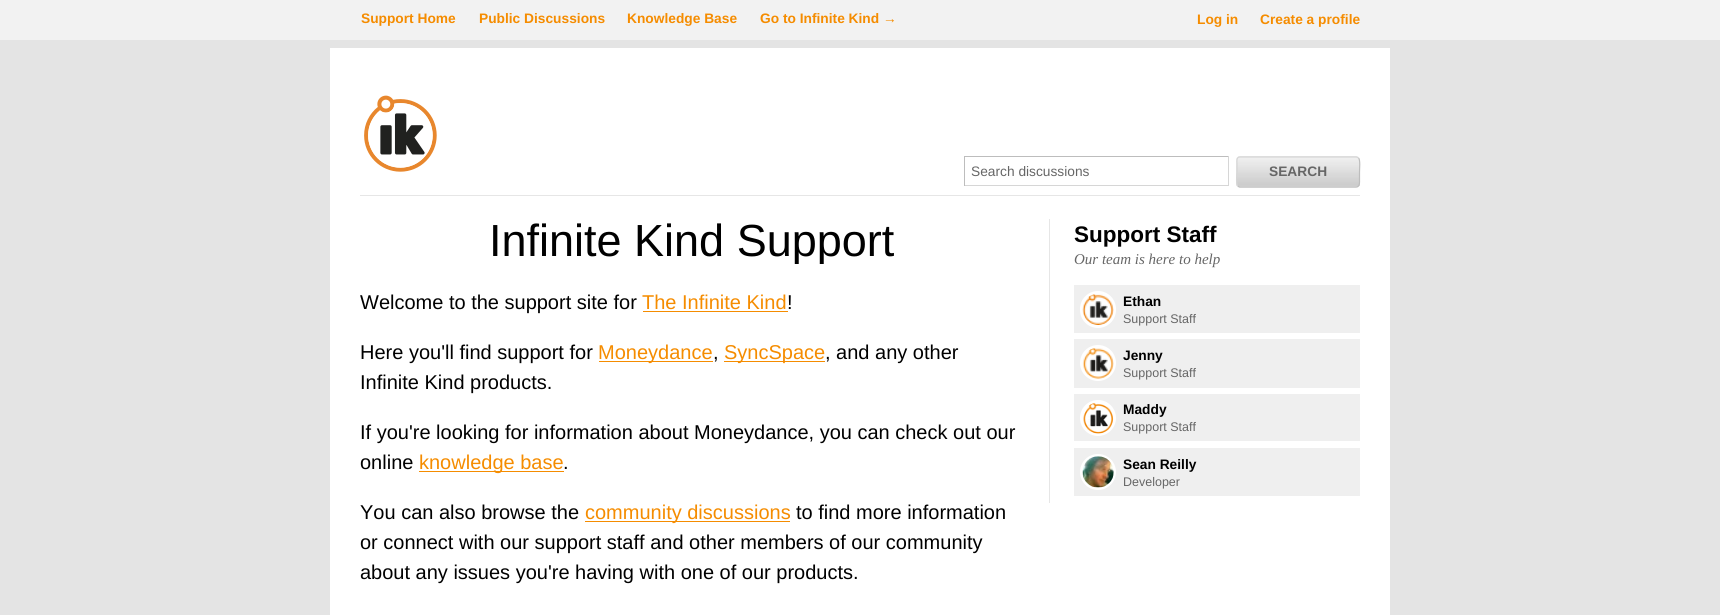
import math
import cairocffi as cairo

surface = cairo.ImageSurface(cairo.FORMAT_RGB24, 1720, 615)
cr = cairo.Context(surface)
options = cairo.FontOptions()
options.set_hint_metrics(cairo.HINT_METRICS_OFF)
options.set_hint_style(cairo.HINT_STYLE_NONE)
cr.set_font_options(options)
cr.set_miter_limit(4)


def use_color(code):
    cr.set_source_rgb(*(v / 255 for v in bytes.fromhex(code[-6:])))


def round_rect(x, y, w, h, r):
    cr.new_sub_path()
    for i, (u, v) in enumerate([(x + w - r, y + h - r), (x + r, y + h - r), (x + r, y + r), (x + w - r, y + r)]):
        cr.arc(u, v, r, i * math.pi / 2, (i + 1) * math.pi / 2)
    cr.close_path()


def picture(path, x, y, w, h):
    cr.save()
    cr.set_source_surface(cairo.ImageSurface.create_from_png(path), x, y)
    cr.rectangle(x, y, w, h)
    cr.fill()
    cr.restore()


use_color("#e4e4e4")
cr.paint()
use_color("#f2f2f2")
cr.rectangle(0, 0, 1720, 40)
cr.fill()
cr.select_font_face("Liberation Sans", cairo.FONT_SLANT_NORMAL, cairo.FONT_WEIGHT_BOLD)
cr.set_font_size(13.75)
use_color("#f58c00")
cr.move_to(361, 23)
cr.show_text("Support Home")
cr.move_to(479, 23)
cr.show_text("Public Discussions")
cr.move_to(627, 23)
cr.show_text("Knowledge Base")
cr.move_to(760, 23)
cr.show_text("Go to Infinite Kind →")
cr.move_to(1197, 24)
cr.show_text("Log in")
cr.move_to(1260, 24)
cr.show_text("Create a profile")
use_color("#ffffff")
cr.rectangle(330, 48, 1060, 567)
cr.fill()
use_color("#e6e6e6")
cr.rectangle(360, 195, 1000, 1)
cr.fill()
picture("img1.png", 364, 95, 73, 77)
use_color("#bdbdbd")
cr.rectangle(964, 156, 265, 1)
cr.fill()
use_color("#d6d6d6")
cr.rectangle(1228, 156, 1, 30)
cr.fill()
cr.rectangle(964, 185, 265, 1)
cr.fill()
use_color("#bdbdbd")
cr.rectangle(964, 156, 1, 30)
cr.fill()
cr.select_font_face("Liberation Sans")
use_color("#666666")
cr.move_to(971, 176)
cr.show_text("Search discussions")
use_color("#f0f0f0")
round_rect(1236, 156, 124, 32, 4)
cr.fill()
picture("img2.png", 1236, 156, 124, 31)
cr.new_path()
cr.move_to(1358.5, 158)
cr.curve_to(1360.5, 160, 1359.5, 169, 1359.5, 172)
cr.line_to(1359.5, 180)
cr.curve_to(1359.5, 182, 1360, 187, 1356, 187)
cr.line_to(1239.5, 187)
cr.line_to(1238, 186)
use_color("#bdbdbd")
cr.set_line_width(1.2)
cr.stroke()
cr.new_path()
cr.move_to(1238, 186)
cr.curve_to(1235.5, 184, 1237, 174.5, 1237, 172)
cr.line_to(1237, 164)
cr.curve_to(1237, 161.5, 1236, 157, 1240, 157)
cr.line_to(1356.5, 157)
cr.line_to(1358.5, 158)
use_color("#d6d6d6")
cr.stroke()
cr.select_font_face("Liberation Sans", cairo.FONT_SLANT_NORMAL, cairo.FONT_WEIGHT_BOLD)
use_color("#666666")
cr.move_to(1269, 176)
cr.show_text("SEARCH")
cr.save()
cr.rectangle(360, 219, 663, 45)
cr.clip()
cr.select_font_face("Liberation Sans")
cr.set_font_size(45)
use_color("#000000")
cr.move_to(489, 256)
cr.show_text("Infinite Kind Support")
cr.restore()
cr.select_font_face("Liberation Sans")
cr.set_font_size(20)
use_color("#000000")
cr.move_to(360, 309)
cr.show_text("Welcome to the support site for")
use_color("#f58c00")
cr.move_to(642, 309)
cr.show_text("The Infinite Kind")
cr.rectangle(643, 311, 145, 1)
cr.fill()
use_color("#000000")
cr.move_to(787, 309)
cr.show_text("!")
cr.move_to(360, 359)
cr.show_text("Here you'll find support for")
use_color("#f58c00")
cr.rectangle(599, 361, 114, 1)
cr.fill()
cr.move_to(598, 359)
cr.show_text("Moneydance")
use_color("#000000")
cr.move_to(713, 359)
cr.show_text(",")
use_color("#f58c00")
cr.rectangle(724, 361, 101, 1)
cr.fill()
cr.move_to(724, 359)
cr.show_text("SyncSpace")
use_color("#000000")
cr.move_to(825, 359)
cr.show_text(", and any other")
cr.move_to(360, 389)
cr.show_text("Infinite Kind products.")
cr.move_to(360, 439)
cr.show_text("If you're looking for information about Moneydance, you can check out our")
cr.move_to(360, 469)
cr.show_text("online")
use_color("#f58c00")
cr.rectangle(419, 471, 145, 1)
cr.fill()
cr.move_to(419, 469)
cr.show_text("knowledge base")
use_color("#000000")
cr.move_to(563, 469)
cr.show_text(".")
cr.move_to(360, 519)
cr.show_text("You can also browse the")
use_color("#f58c00")
cr.rectangle(585, 521, 205, 1)
cr.fill()
cr.move_to(585, 519)
cr.show_text("community discussions")
use_color("#000000")
cr.move_to(796, 519)
cr.show_text("to find more information")
cr.move_to(360, 549)
cr.show_text("or connect with our support staff and other members of our community")
cr.move_to(360, 579)
cr.show_text("about any issues you're having with one of our products.")
use_color("#e6e6e6")
cr.rectangle(1049, 219, 1, 284)
cr.fill()
cr.select_font_face("Liberation Sans", cairo.FONT_SLANT_NORMAL, cairo.FONT_WEIGHT_BOLD)
cr.set_font_size(22.5)
use_color("#000000")
cr.move_to(1074, 242)
cr.show_text("Support Staff")
cr.select_font_face("Liberation Serif", cairo.FONT_SLANT_ITALIC)
cr.set_font_size(15)
use_color("#666666")
cr.move_to(1074, 264)
cr.show_text("Our team is here to help")
use_color("#efefef")
cr.rectangle(1074, 285, 286, 48)
cr.fill()
round_rect(1081.5, 292.5, 33, 34, 16.5)
use_color("#ffffff")
cr.set_line_width(3)
cr.stroke()
picture("img3.png", 1082, 294, 32, 31)
cr.select_font_face("Liberation Sans", cairo.FONT_SLANT_NORMAL, cairo.FONT_WEIGHT_BOLD)
cr.set_font_size(13.75)
use_color("#000000")
cr.move_to(1123, 306)
cr.show_text("Ethan")
cr.select_font_face("Liberation Sans")
cr.set_font_size(12.5)
use_color("#666666")
cr.move_to(1123, 323)
cr.show_text("Support Staff")
use_color("#efefef")
cr.rectangle(1074, 339, 286, 49)
cr.fill()
cr.arc(1098, 363, 16.5, 0, 2 * math.pi)
use_color("#ffffff")
cr.stroke()
picture("img4.png", 1082, 348, 32, 31)
cr.select_font_face("Liberation Sans", cairo.FONT_SLANT_NORMAL, cairo.FONT_WEIGHT_BOLD)
cr.set_font_size(13.75)
use_color("#000000")
cr.move_to(1123, 360)
cr.show_text("Jenny")
cr.select_font_face("Liberation Sans")
cr.set_font_size(12.5)
use_color("#666666")
cr.move_to(1123, 377)
cr.show_text("Support Staff")
use_color("#efefef")
cr.rectangle(1074, 394, 286, 47)
cr.fill()
cr.arc(1098, 418, 16.5, 0, 2 * math.pi)
use_color("#ffffff")
cr.stroke()
picture("img5.png", 1083, 403, 31, 31)
cr.select_font_face("Liberation Sans", cairo.FONT_SLANT_NORMAL, cairo.FONT_WEIGHT_BOLD)
cr.set_font_size(13.75)
use_color("#000000")
cr.move_to(1123, 414)
cr.show_text("Maddy")
cr.select_font_face("Liberation Sans")
cr.set_font_size(12.5)
use_color("#666666")
cr.move_to(1123, 431)
cr.show_text("Support Staff")
use_color("#efefef")
cr.rectangle(1074, 448, 286, 48)
cr.fill()
cr.arc(1098, 472, 16.5, 0, 2 * math.pi)
use_color("#ffffff")
cr.stroke()
picture("img6.png", 1082, 456, 32, 32)
cr.select_font_face("Liberation Sans", cairo.FONT_SLANT_NORMAL, cairo.FONT_WEIGHT_BOLD)
cr.set_font_size(13.75)
use_color("#000000")
cr.move_to(1123, 469)
cr.show_text("Sean Reilly")
cr.select_font_face("Liberation Sans")
cr.set_font_size(12.5)
use_color("#666666")
cr.move_to(1123, 486)
cr.show_text("Developer")
surface.write_to_png("result.png")
